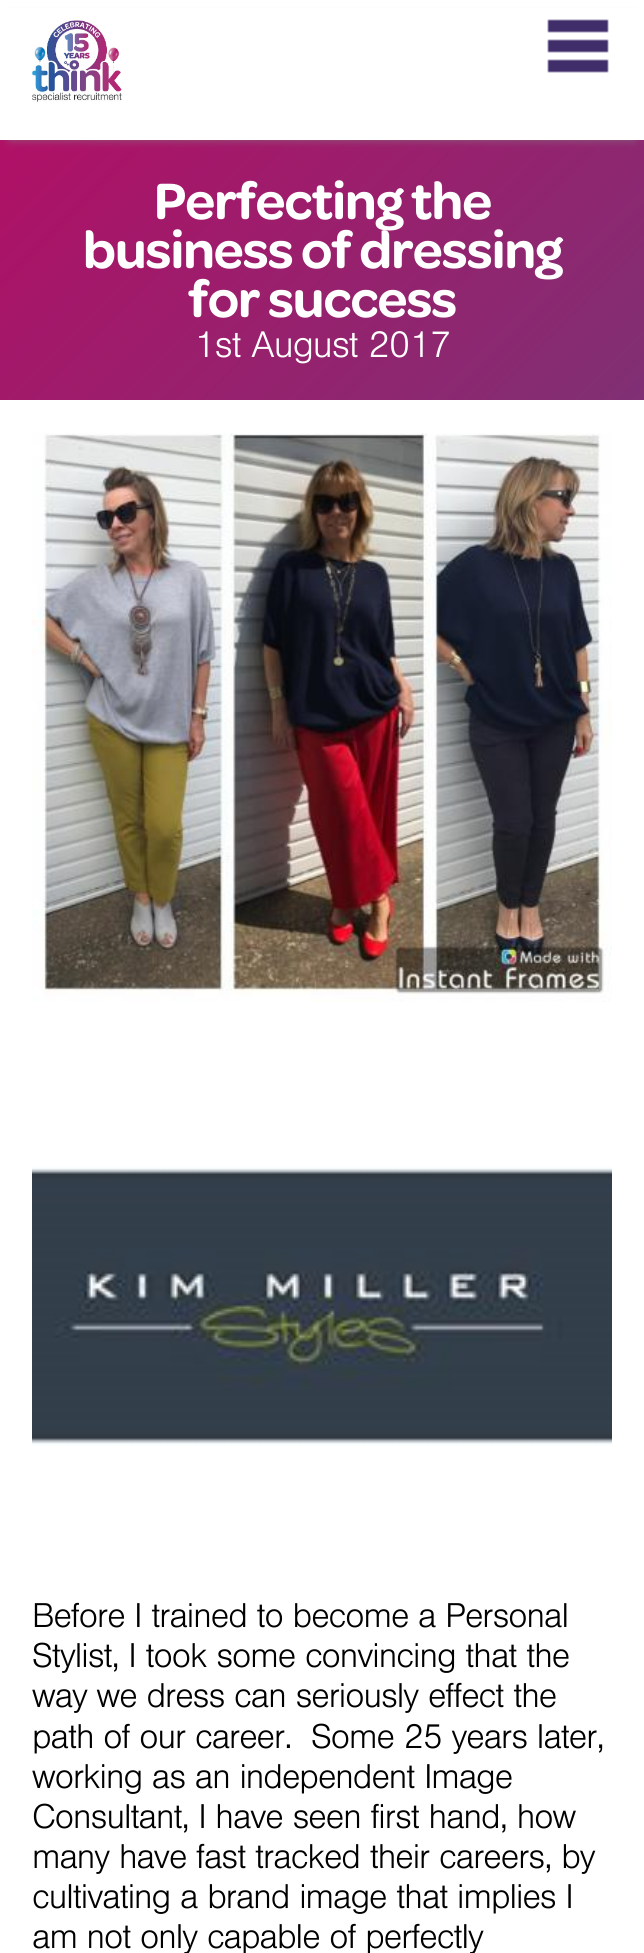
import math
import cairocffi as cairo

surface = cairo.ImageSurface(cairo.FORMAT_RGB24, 644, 1953)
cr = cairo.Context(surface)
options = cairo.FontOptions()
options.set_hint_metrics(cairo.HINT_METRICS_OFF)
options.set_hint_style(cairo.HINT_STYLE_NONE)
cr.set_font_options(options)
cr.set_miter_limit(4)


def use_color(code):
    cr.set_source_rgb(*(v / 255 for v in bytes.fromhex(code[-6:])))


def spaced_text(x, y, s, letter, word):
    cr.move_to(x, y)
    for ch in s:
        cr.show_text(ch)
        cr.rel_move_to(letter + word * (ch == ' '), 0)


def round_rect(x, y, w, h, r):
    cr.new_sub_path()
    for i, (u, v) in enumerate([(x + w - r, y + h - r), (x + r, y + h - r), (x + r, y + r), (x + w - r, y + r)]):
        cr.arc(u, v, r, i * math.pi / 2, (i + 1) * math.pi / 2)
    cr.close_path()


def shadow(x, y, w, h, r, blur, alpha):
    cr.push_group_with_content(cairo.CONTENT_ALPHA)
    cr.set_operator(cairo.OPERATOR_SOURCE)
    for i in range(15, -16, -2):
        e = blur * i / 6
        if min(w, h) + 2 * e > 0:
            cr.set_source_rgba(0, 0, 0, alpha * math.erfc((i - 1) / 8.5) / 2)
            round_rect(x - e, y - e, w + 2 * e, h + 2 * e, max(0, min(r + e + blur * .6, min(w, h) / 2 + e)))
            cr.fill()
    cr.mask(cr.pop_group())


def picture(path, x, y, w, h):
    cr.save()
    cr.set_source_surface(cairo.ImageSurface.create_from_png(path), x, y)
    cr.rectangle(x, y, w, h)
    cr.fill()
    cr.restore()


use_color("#ffffff")
cr.paint()
gradient = cairo.LinearGradient(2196, 1572, 380, -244)
gradient.add_color_stop_rgba(0, 0, 0.569, 0.824, 1)
gradient.add_color_stop_rgba(0.25, 0.212, 0.255, 0.529, 1)
gradient.add_color_stop_rgba(0.5, 0.345, 0.235, 0.506, 1)
gradient.add_color_stop_rgba(0.75, 0.502, 0.188, 0.455, 1)
gradient.add_color_stop_rgba(1, 0.69, 0.063, 0.4, 1)
cr.set_source(gradient)
cr.rectangle(0, 140, 644, 260)
cr.fill()
use_color("#808080")
shadow(10, 18, 624, 120, 0, 5, 1)
use_color("#ffffff")
cr.rectangle(0, 8, 644, 132)
cr.fill()
picture("img1.png", 32, 20, 90, 82)
picture("img2.png", 547, 19, 62, 54)
cr.select_font_face("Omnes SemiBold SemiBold")
cr.set_font_size(54.5)
spaced_text(154, 219, "Perfecting the", -1, 0)
spaced_text(83, 268, "business of dressing", -1, 0)
spaced_text(188, 317, "for success", -1, 0)
cr.select_font_face("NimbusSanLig")
cr.set_font_size(38.5)
spaced_text(194, 357, "1st August 2017", -1, 0)
picture("img3.png", 32, 433, 580, 569)
picture("img4.png", 32, 1166, 580, 280)
cr.set_font_size(35.8)
use_color("#000000")
spaced_text(32, 1627, "Before I trained to become a Personal", -1, 0)
spaced_text(32, 1667, "Stylist, I took some convincing that the", -1, 0)
spaced_text(32, 1707, "way we dress can seriously effect the", -1, 0)
spaced_text(32, 1748, "path of our career.  Some 25 years later,", -1, 0)
spaced_text(32, 1788, "working as an independent Image", -1, 0)
spaced_text(32, 1828, "Consultant, I have seen first hand, how", -1, 0)
spaced_text(32, 1868, "many have fast tracked their careers, by", -1, 0)
spaced_text(32, 1908, "cultivating a brand image that implies I", -1, 0)
spaced_text(32, 1948, "am not only capable of perfectly", -1, 0)
surface.write_to_png("result.png")
